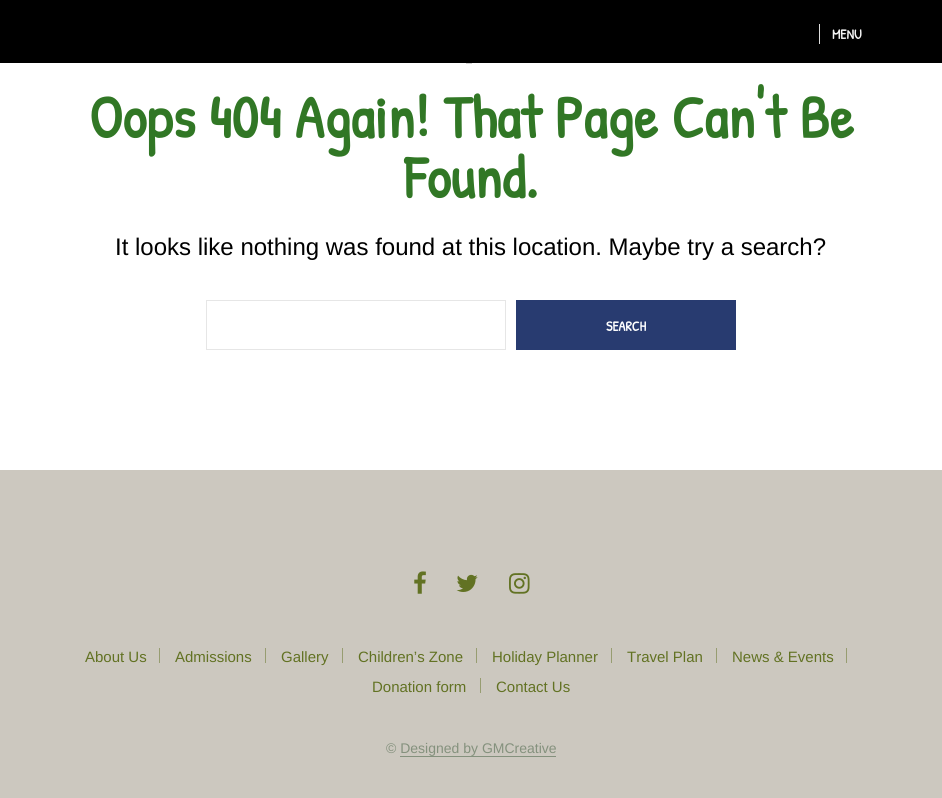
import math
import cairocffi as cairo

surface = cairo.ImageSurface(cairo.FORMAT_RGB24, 942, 798)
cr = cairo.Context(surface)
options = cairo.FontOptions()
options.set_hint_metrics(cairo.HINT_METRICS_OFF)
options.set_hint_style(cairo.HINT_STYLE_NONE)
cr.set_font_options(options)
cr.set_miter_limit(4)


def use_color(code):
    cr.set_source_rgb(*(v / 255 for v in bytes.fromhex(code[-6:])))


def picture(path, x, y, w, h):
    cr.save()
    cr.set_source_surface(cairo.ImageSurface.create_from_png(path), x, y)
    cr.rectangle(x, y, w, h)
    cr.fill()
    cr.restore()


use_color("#ffffff")
cr.paint()
use_color("#000000")
cr.rectangle(0, 0, 942, 63)
cr.fill()
use_color("#dddddd")
cr.rectangle(819, 24, 1, 20)
cr.fill()
cr.select_font_face("Patrick Hand", cairo.FONT_SLANT_NORMAL, cairo.FONT_WEIGHT_BOLD)
cr.set_font_size(14)
use_color("#f4f4f4")
cr.move_to(832, 39)
cr.show_text("MENU")
picture("img1.png", 466, 63, 6, 1)
cr.set_font_size(60)
use_color("#317725")
cr.move_to(89, 138)
cr.show_text("Oops 404 Again! That Page Can't Be")
cr.move_to(404, 198)
cr.show_text("Found.")
cr.select_font_face("Liberation Sans")
cr.set_font_size(24)
use_color("#000000")
cr.move_to(115, 255)
cr.show_text("It looks like nothing was found at this location. Maybe try a search?")
cr.rectangle(206.5, 300.5, 299, 49)
use_color("#e6e6e6")
cr.set_line_width(1)
cr.stroke()
use_color("#283b70")
cr.rectangle(516, 300, 220, 50)
cr.fill()
cr.select_font_face("Patrick Hand", cairo.FONT_SLANT_NORMAL, cairo.FONT_WEIGHT_BOLD)
cr.set_font_size(14)
use_color("#ffffff")
cr.move_to(606, 331)
cr.show_text("SEARCH")
use_color("#ccc8bf")
cr.rectangle(0, 470, 942, 328)
cr.fill()
picture("img2.png", 414, 571, 12, 23)
picture("img3.png", 456, 574, 22, 18)
picture("img4.png", 509, 573, 21, 21)
cr.select_font_face("Liberation Sans")
cr.set_font_size(15)
use_color("#627223")
cr.move_to(85, 662)
cr.show_text("About Us")
use_color("#979d71")
cr.rectangle(159, 648, 1, 15)
cr.fill()
use_color("#627223")
cr.move_to(175, 662)
cr.show_text("Admissions")
use_color("#979d71")
cr.rectangle(265, 648, 1, 15)
cr.fill()
use_color("#627223")
cr.move_to(281, 662)
cr.show_text("Gallery")
use_color("#979d71")
cr.rectangle(342, 648, 1, 15)
cr.fill()
use_color("#627223")
cr.move_to(358, 662)
cr.show_text("Children’s Zone")
use_color("#979d71")
cr.rectangle(476, 648, 1, 15)
cr.fill()
use_color("#627223")
cr.move_to(492, 662)
cr.show_text("Holiday Planner")
use_color("#979d71")
cr.rectangle(611, 648, 1, 15)
cr.fill()
use_color("#627223")
cr.move_to(627, 662)
cr.show_text("Travel Plan")
use_color("#979d71")
cr.rectangle(716, 648, 1, 15)
cr.fill()
use_color("#627223")
cr.move_to(732, 662)
cr.show_text("News & Events")
use_color("#979d71")
cr.rectangle(846, 648, 1, 15)
cr.fill()
use_color("#627223")
cr.move_to(372, 692)
cr.show_text("Donation form")
use_color("#979d71")
cr.rectangle(480, 678, 1, 15)
cr.fill()
use_color("#627223")
cr.move_to(496, 692)
cr.show_text("Contact Us")
cr.set_font_size(14)
use_color("#84917d")
cr.move_to(386, 753)
cr.show_text("© Designed by GMCreative")
cr.rectangle(400, 756, 156, 1)
cr.fill()
surface.write_to_png("result.png")
